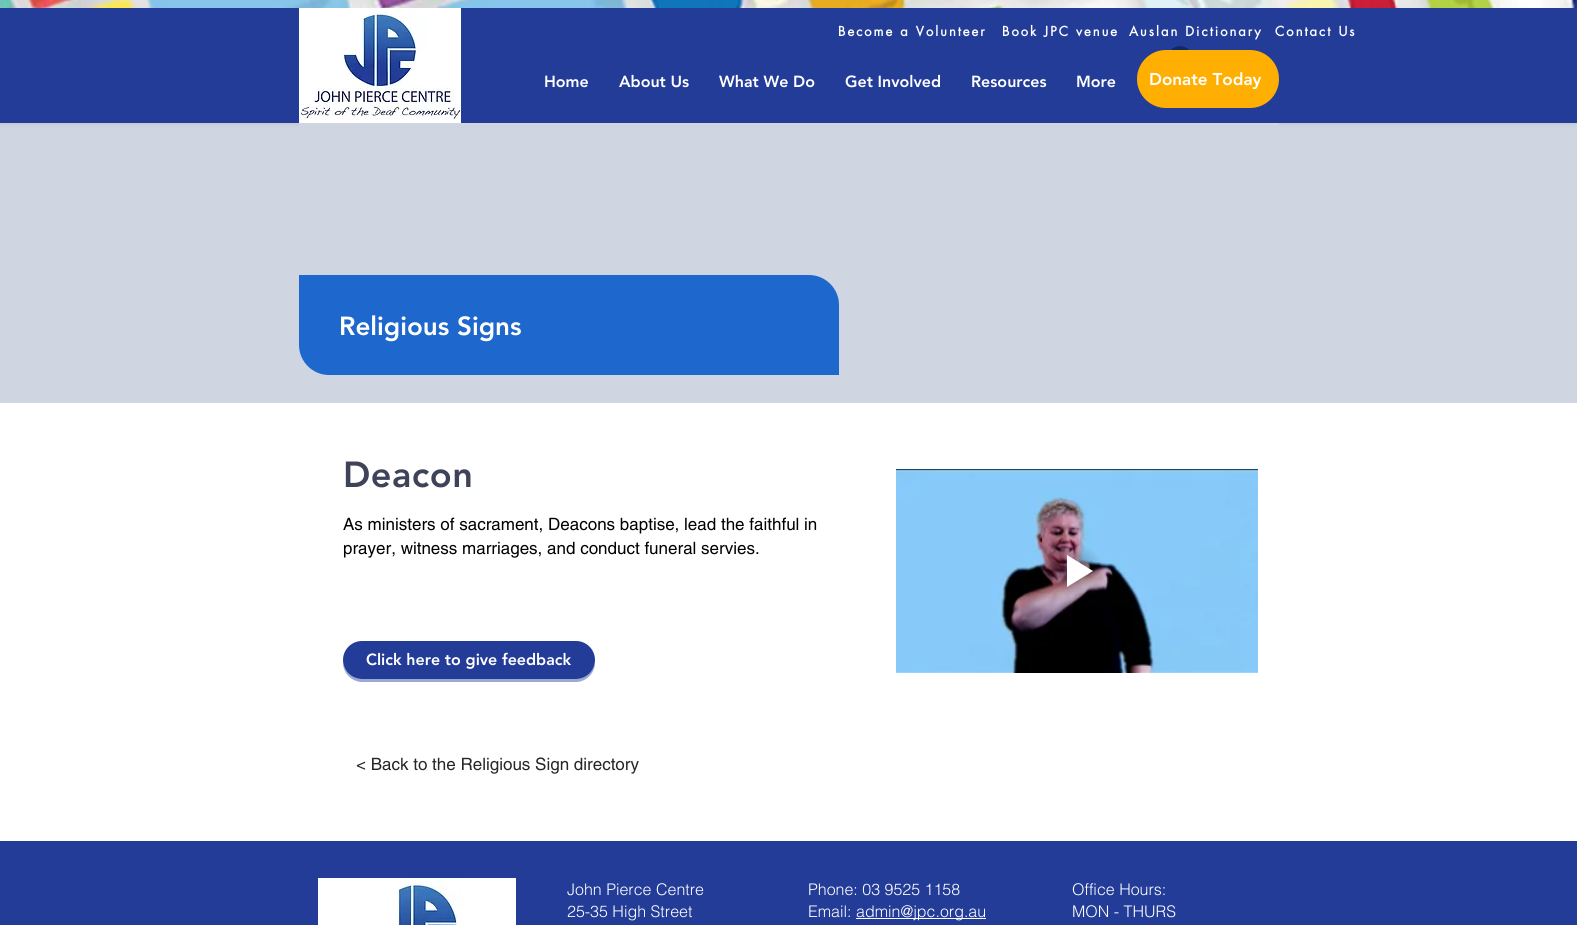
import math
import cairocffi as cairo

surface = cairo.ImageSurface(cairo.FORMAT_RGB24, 1577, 925)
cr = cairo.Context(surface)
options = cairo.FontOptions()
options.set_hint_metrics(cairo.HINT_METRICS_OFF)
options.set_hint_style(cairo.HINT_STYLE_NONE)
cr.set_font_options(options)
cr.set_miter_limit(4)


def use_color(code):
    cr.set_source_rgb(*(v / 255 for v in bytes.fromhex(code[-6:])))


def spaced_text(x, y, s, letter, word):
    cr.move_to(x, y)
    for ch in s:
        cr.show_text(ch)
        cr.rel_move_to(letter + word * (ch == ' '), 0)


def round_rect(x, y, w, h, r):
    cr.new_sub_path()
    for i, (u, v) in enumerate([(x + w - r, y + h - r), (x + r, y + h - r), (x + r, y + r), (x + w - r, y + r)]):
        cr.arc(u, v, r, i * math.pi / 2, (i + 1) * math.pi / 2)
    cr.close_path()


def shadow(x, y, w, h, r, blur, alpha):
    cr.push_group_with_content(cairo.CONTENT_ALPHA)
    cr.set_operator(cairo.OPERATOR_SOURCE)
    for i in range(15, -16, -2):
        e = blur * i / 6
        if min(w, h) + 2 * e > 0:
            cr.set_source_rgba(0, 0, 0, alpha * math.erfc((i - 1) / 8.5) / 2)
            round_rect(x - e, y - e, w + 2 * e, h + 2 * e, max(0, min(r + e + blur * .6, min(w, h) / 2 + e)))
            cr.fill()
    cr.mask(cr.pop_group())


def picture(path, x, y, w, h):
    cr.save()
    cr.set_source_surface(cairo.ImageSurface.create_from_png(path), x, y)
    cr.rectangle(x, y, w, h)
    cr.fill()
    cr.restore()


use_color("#ffffff")
cr.paint()
use_color("#cfd5e1")
cr.rectangle(0, 123, 1577, 280)
cr.fill()
use_color("#9ca2ae")
shadow(0, -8, 1577, 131, 0, 2.5, 0.5)
use_color("#233c98")
cr.rectangle(0, 8, 1577, 115)
cr.fill()
picture("img1.png", 0, 0, 1577, 8)
picture("img2.png", 299, 8, 162, 115)
cr.select_font_face("futura", cairo.FONT_SLANT_NORMAL, cairo.FONT_WEIGHT_BOLD)
cr.set_font_size(13)
use_color("#ffffff")
spaced_text(838, 36, "Become a Volunteer", 2, 0)
spaced_text(1002, 36, "Book JPC venue", 2, 0)
spaced_text(1129, 36, "Auslan Dictionary", 2, 0)
spaced_text(1275, 36, "Contact Us", 2, 0)
picture("img3.png", 1171, 46, 18, 4)
cr.select_font_face("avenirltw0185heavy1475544 Black")
cr.set_font_size(16)
cr.move_to(544, 87)
cr.show_text("Home")
cr.move_to(619, 87)
cr.show_text("About Us")
cr.move_to(719, 87)
cr.show_text("What We Do")
cr.move_to(845, 87)
cr.show_text("Get Involved")
cr.move_to(971, 87)
cr.show_text("Resources")
cr.move_to(1076, 87)
cr.show_text("More")
use_color("#ffaf02")
round_rect(1137, 50, 142, 58, 29)
cr.fill()
cr.set_font_size(17)
use_color("#ffffff")
cr.move_to(1149, 85)
cr.show_text("Donate Today")
use_color("#cfd5e1")
cr.rectangle(299, 123, 980, 3)
cr.fill()
use_color("#1d67cd")
cr.new_path()
cr.move_to(299, 275)
cr.line_to(809, 275)
cr.curve_to(825.5, 275, 839, 288.5, 839, 305)
cr.line_to(839, 375)
cr.line_to(329, 375)
cr.curve_to(312.5, 375, 299, 361.5, 299, 345)
cr.close_path()
cr.fill()
cr.set_font_size(26)
use_color("#ffffff")
cr.move_to(339, 335)
cr.show_text("Religious Signs")
cr.set_font_size(36)
use_color("#3f4359")
spaced_text(343, 487, "Deacon", 0.5, 0)
picture("img4.png", 896, 469, 362, 204)
use_color("#ffffff")
cr.new_path()
cr.move_to(1067, 587)
cr.line_to(1067, 555)
cr.line_to(1093, 571)
cr.close_path()
cr.fill()
cr.select_font_face("helvetica")
cr.set_font_size(17)
use_color("#000000")
cr.move_to(343, 530)
cr.show_text("As ministers of sacrament, Deacons baptise, lead the faithful in")
cr.move_to(343, 554)
cr.show_text("prayer, witness marriages, and conduct funeral servies.")
use_color("#9aa9d4")
cr.new_path()
cr.move_to(343, 662)
cr.line_to(343, 663)
cr.curve_to(343, 673, 352, 682, 362, 682)
cr.line_to(576, 682)
cr.curve_to(586, 682, 595, 673, 595, 663)
cr.line_to(595, 662)
cr.curve_to(594, 671, 586, 679, 576, 679)
cr.line_to(362, 679)
cr.curve_to(352, 679, 344, 671, 343, 662)
cr.close_path()
cr.fill()
use_color("#233c98")
round_rect(343, 641, 252, 38, 19)
cr.fill()
cr.select_font_face("avenirltw0185heavy1475544 Black")
cr.set_font_size(16)
use_color("#ffffff")
cr.move_to(366, 665)
cr.show_text("Click here to give feedback")
cr.select_font_face("helvetica")
cr.set_font_size(17)
use_color("#282626")
cr.move_to(356, 770)
cr.show_text("< Back to the Religious Sign directory")
use_color("#233c98")
cr.rectangle(0, 841, 1577, 84)
cr.fill()
picture("img5.png", 318, 878, 198, 47)
cr.select_font_face("helvetica Light")
cr.set_font_size(16)
use_color("#ffffff")
cr.move_to(567, 895)
cr.show_text("John Pierce Centre")
cr.move_to(567, 917)
cr.show_text("25-35 High Street")
cr.move_to(808, 895)
cr.show_text("Phone: 03 9525 1158")
cr.move_to(808, 917)
cr.show_text("Email:")
cr.rectangle(856, 918, 130, 1)
cr.fill()
cr.move_to(856, 917)
cr.show_text("admin@jpc.org.au")
cr.move_to(1072, 895)
cr.show_text("Office Hours:")
cr.move_to(1072, 917)
cr.show_text("MON - THURS")
surface.write_to_png("result.png")
